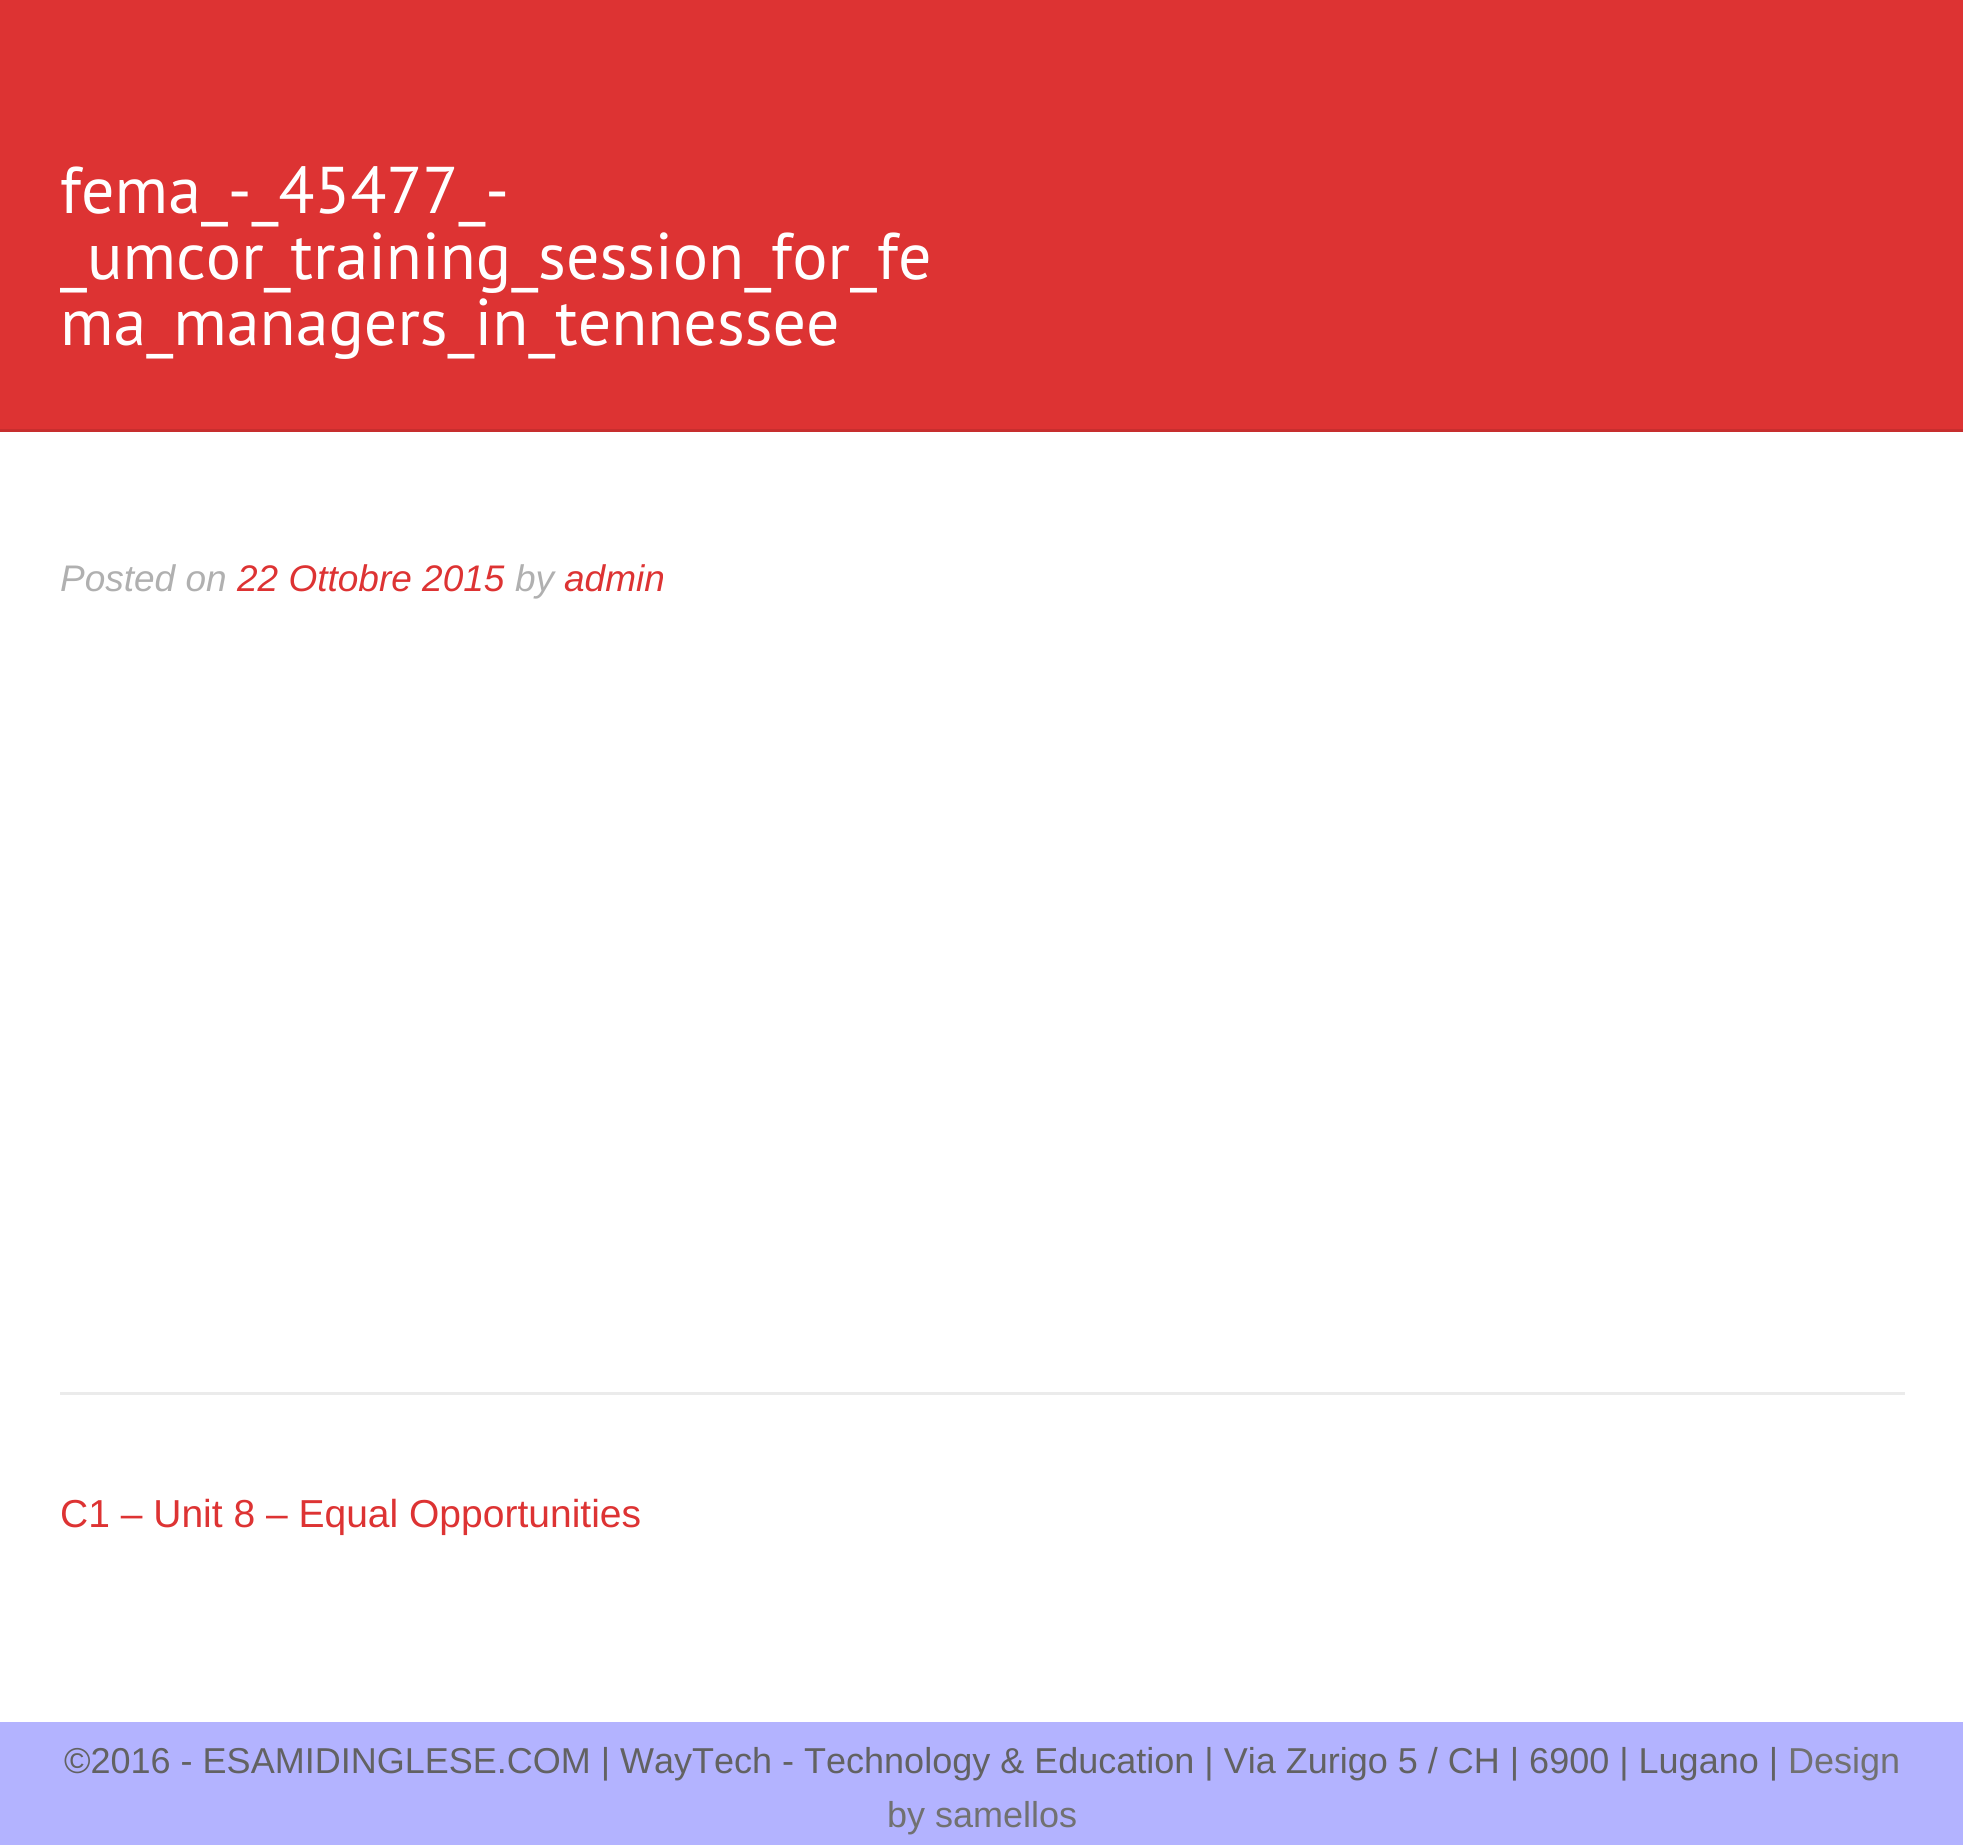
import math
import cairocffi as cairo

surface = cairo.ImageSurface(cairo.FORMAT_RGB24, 1963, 1845)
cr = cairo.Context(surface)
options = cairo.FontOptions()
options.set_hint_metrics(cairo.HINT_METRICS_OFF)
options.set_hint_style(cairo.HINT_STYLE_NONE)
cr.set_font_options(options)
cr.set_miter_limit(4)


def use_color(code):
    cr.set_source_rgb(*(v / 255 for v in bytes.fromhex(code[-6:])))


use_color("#ffffff")
cr.paint()
use_color("#dd3333")
cr.rectangle(0, 0, 1963, 429)
cr.fill()
use_color("#c72e2e")
cr.rectangle(0, 429, 1963, 3)
cr.fill()
cr.select_font_face("PT Sans")
cr.set_font_size(66)
use_color("#ffffff")
cr.move_to(60, 213)
cr.show_text("fema_-_45477_-")
cr.move_to(60, 279)
cr.show_text("_umcor_training_session_for_fe")
cr.move_to(60, 345)
cr.show_text("ma_managers_in_tennessee")
use_color("#ebebeb")
cr.rectangle(60, 1392, 1845, 3)
cr.fill()
cr.select_font_face("Liberation Sans", cairo.FONT_SLANT_ITALIC)
cr.set_font_size(37)
use_color("#b0b0b0")
cr.move_to(60, 591)
cr.show_text("Posted on")
use_color("#dd3333")
cr.move_to(237, 591)
cr.show_text("22 Ottobre 2015")
use_color("#b0b0b0")
cr.move_to(515, 591)
cr.show_text("by")
use_color("#dd3333")
cr.move_to(564, 591)
cr.show_text("admin")
cr.select_font_face("Liberation Sans")
cr.set_font_size(39)
cr.move_to(60, 1527)
cr.show_text("C1 – Unit 8 – Equal Opportunities")
use_color("#b3b3ff")
cr.rectangle(0, 1722, 1963, 123)
cr.fill()
cr.set_font_size(36)
use_color("#626262")
cr.move_to(64, 1773)
cr.show_text("©2016 - ESAMIDINGLESE.COM | WayTech - Technology & Education | Via Zurigo 5 / CH | 6900 | Lugano |")
use_color("#717171")
cr.move_to(1788, 1773)
cr.show_text("Design")
cr.move_to(887, 1827)
cr.show_text("by samellos")
surface.write_to_png("result.png")
